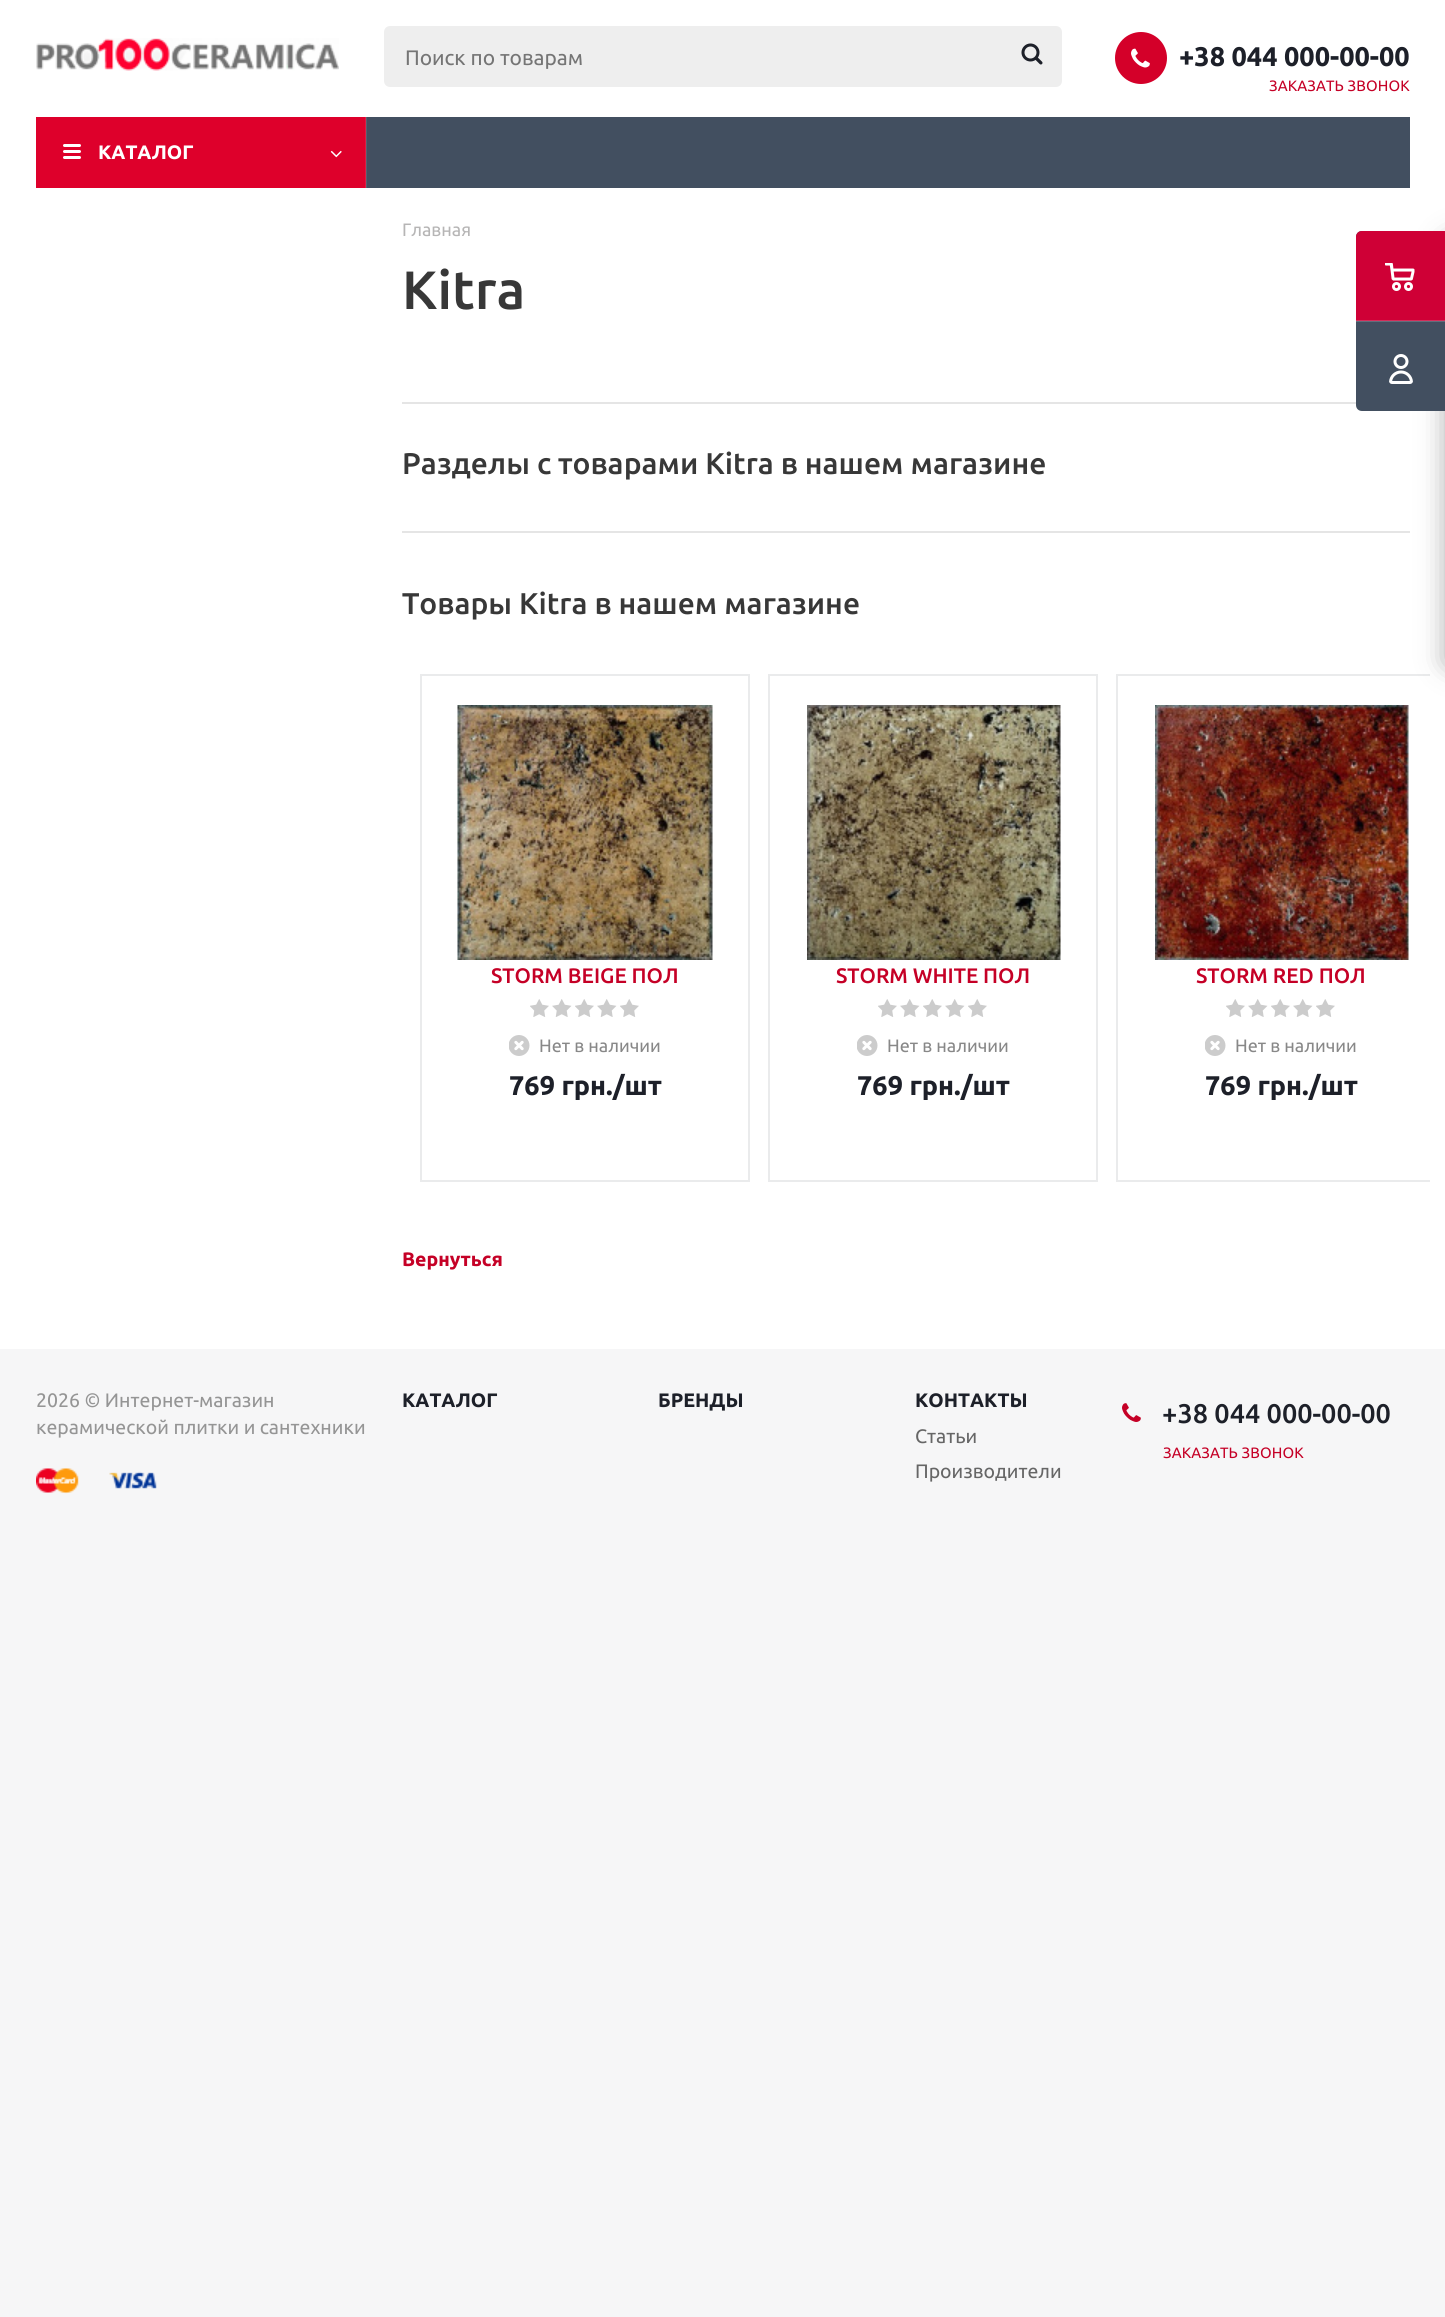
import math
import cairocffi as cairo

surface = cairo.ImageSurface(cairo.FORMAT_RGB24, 1445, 2317)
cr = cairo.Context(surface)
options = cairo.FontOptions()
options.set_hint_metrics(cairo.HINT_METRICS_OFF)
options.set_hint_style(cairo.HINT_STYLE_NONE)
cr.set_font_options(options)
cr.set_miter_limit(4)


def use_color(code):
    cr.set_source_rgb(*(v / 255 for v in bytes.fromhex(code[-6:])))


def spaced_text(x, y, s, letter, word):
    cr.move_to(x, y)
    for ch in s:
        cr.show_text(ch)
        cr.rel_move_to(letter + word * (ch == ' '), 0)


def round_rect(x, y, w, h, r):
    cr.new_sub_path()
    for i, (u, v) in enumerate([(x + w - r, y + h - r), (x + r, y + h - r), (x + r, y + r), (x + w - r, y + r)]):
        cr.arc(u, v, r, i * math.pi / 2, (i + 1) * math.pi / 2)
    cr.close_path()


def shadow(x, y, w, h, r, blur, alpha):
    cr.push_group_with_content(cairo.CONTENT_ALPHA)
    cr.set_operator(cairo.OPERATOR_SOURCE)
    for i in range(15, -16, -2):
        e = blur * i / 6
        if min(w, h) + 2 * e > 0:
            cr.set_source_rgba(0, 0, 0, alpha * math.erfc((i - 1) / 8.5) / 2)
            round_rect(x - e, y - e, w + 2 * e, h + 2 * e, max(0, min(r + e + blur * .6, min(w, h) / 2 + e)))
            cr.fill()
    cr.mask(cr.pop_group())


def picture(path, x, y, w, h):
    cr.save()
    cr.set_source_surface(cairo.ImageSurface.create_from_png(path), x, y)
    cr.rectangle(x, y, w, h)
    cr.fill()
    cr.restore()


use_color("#f6f6f7")
cr.paint()
use_color("#ffffff")
cr.rectangle(0, 0, 1445, 1349)
cr.fill()
picture("img1.png", 36, 38, 303, 33)
use_color("#eeeeee")
round_rect(384, 26, 678, 61, 6)
cr.fill()
cr.select_font_face("Ubuntu")
cr.set_font_size(21)
use_color("#757575")
cr.move_to(405, 65)
cr.show_text("Поиск по товарам")
picture("img2.png", 1021, 43, 22, 22)
use_color("#d40029")
cr.arc(1141, 58, 26, 0, 2 * math.pi)
cr.fill()
picture("img3.png", 1131, 48, 19, 20)
cr.select_font_face("Ubuntu", cairo.FONT_SLANT_NORMAL, cairo.FONT_WEIGHT_BOLD)
cr.set_font_size(27)
use_color("#1d2029")
cr.move_to(1179, 66)
cr.show_text("+38 044 000-00-00")
cr.select_font_face("Ubuntu")
cr.set_font_size(15)
use_color("#c50026")
spaced_text(1269, 91, "ЗАКАЗАТЬ ЗВОНОК", 0.1, 0)
use_color("#e5e5e5")
cr.rectangle(402, 531, 1008, 2)
cr.fill()
cr.save()
cr.rectangle(383, 654, 1047, 575)
cr.clip()
cr.rectangle(1117, 675, 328, 506)
use_color("#eaebec")
cr.stroke()
cr.restore()
picture("img13.png", 1155, 705, 254, 255)
use_color("#2c2c2c")
shadow(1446, 240, 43, 425, 3, 13.5, 0.4)
use_color("#424f60")
cr.new_path()
cr.move_to(1362, 231)
cr.line_to(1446, 231)
cr.line_to(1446, 411)
cr.line_to(1362, 411)
cr.curve_to(1358.5, 411, 1356, 408.5, 1356, 405)
cr.line_to(1356, 237)
cr.curve_to(1356, 233.5, 1358.5, 231, 1362, 231)
cr.close_path()
cr.fill()
use_color("#cf0036")
cr.new_path()
cr.move_to(1362, 231)
cr.line_to(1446, 231)
cr.line_to(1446, 321)
cr.line_to(1356, 321)
cr.line_to(1356, 237)
cr.curve_to(1356, 233.5, 1358.5, 231, 1362, 231)
cr.close_path()
cr.fill()
picture("img4.png", 1385, 263, 30, 28)
cr.set_source_rgba(0.906, 0.929, 0.949, 0.2)
cr.rectangle(1356, 320, 89, 2)
cr.fill()
picture("img5.png", 1389, 354, 24, 30)
use_color("#424f60")
cr.rectangle(367, 117, 1043, 71)
cr.fill()
use_color("#556170")
cr.rectangle(366, 117, 1, 71)
cr.fill()
use_color("#de002b")
cr.rectangle(36, 117, 329, 71)
cr.fill()
use_color("#e11a40")
cr.rectangle(365, 117, 1, 71)
cr.fill()
picture("img6.png", 63, 144, 18, 15)
cr.select_font_face("Ubuntu", cairo.FONT_SLANT_NORMAL, cairo.FONT_WEIGHT_BOLD)
cr.set_font_size(19.5)
use_color("#ffffff")
cr.move_to(98, 159)
cr.show_text("КАТАЛОГ")
picture("img7.png", 330, 150, 12, 8)
cr.select_font_face("Ubuntu")
cr.set_font_size(18)
use_color("#b6b5b5")
cr.move_to(402, 236)
cr.show_text("Главная")
cr.select_font_face("Ubuntu Medium")
cr.set_font_size(54)
use_color("#383838")
cr.move_to(402, 309)
cr.show_text("Kitra")
use_color("#e5e5e5")
cr.rectangle(402, 402, 954, 2)
cr.fill()
cr.set_font_size(30)
use_color("#383838")
cr.move_to(402, 474)
cr.show_text("Разделы с товарами Kitra в нашем магазине")
cr.move_to(402, 614)
cr.show_text("Товары Kitra в нашем магазине")
cr.rectangle(421, 675, 328, 506)
use_color("#eaebec")
cr.stroke()
picture("img8.png", 457, 705, 256, 255)
cr.set_font_size(21)
use_color("#c50026")
cr.move_to(491, 983)
cr.show_text("STORM BEIGE ПОЛ")
picture("img9.png", 530, 999, 19, 18)
picture("img10.png", 552, 999, 20, 18)
picture("img9.png", 575, 999, 19, 18)
picture("img10.png", 597, 999, 20, 18)
picture("img9.png", 620, 999, 19, 18)
picture("img11.png", 509, 1035, 21, 21)
cr.select_font_face("Ubuntu")
cr.set_font_size(18)
use_color("#888888")
cr.move_to(539, 1052)
cr.show_text("Нет в наличии")
cr.select_font_face("Ubuntu", cairo.FONT_SLANT_NORMAL, cairo.FONT_WEIGHT_BOLD)
cr.set_font_size(27)
use_color("#1d2029")
cr.move_to(509, 1095)
cr.show_text("769 грн./шт")
cr.rectangle(769, 675, 328, 506)
use_color("#eaebec")
cr.stroke()
picture("img12.png", 807, 705, 254, 255)
cr.select_font_face("Ubuntu Medium")
cr.set_font_size(21)
use_color("#c50026")
cr.move_to(836, 983)
cr.show_text("STORM WHITE ПОЛ")
picture("img9.png", 878, 999, 19, 18)
picture("img10.png", 900, 999, 20, 18)
picture("img9.png", 923, 999, 19, 18)
picture("img10.png", 945, 999, 20, 18)
picture("img9.png", 968, 999, 19, 18)
picture("img11.png", 857, 1035, 21, 21)
cr.select_font_face("Ubuntu")
cr.set_font_size(18)
use_color("#888888")
cr.move_to(887, 1052)
cr.show_text("Нет в наличии")
cr.select_font_face("Ubuntu", cairo.FONT_SLANT_NORMAL, cairo.FONT_WEIGHT_BOLD)
cr.set_font_size(27)
use_color("#1d2029")
cr.move_to(857, 1095)
cr.show_text("769 грн./шт")
cr.select_font_face("Ubuntu Medium")
cr.set_font_size(21)
use_color("#c50026")
cr.move_to(1196, 983)
cr.show_text("STORM RED ПОЛ")
picture("img9.png", 1226, 999, 19, 18)
picture("img10.png", 1248, 999, 20, 18)
picture("img9.png", 1271, 999, 19, 18)
picture("img10.png", 1293, 999, 20, 18)
picture("img9.png", 1316, 999, 19, 18)
picture("img11.png", 1205, 1035, 21, 21)
cr.select_font_face("Ubuntu")
cr.set_font_size(18)
use_color("#888888")
cr.move_to(1235, 1052)
cr.show_text("Нет в наличии")
cr.select_font_face("Ubuntu", cairo.FONT_SLANT_NORMAL, cairo.FONT_WEIGHT_BOLD)
cr.set_font_size(27)
use_color("#1d2029")
cr.move_to(1205, 1095)
cr.show_text("769 грн./шт")
cr.set_font_size(19.5)
use_color("#c50026")
cr.move_to(402, 1266)
cr.show_text("Вернуться")
cr.select_font_face("Ubuntu")
use_color("#959595")
cr.move_to(36, 1407)
cr.show_text("2026 © Интернет-магазин")
cr.move_to(36, 1434)
cr.show_text("керамической плитки и сантехники")
picture("img14.png", 36, 1468, 43, 26)
picture("img15.png", 109, 1471, 48, 18)
cr.select_font_face("Ubuntu", cairo.FONT_SLANT_NORMAL, cairo.FONT_WEIGHT_BOLD)
use_color("#1d2029")
cr.move_to(402, 1407)
cr.show_text("КАТАЛОГ")
cr.move_to(658, 1407)
cr.show_text("БРЕНДЫ")
cr.move_to(915, 1407)
cr.show_text("КОНТАКТЫ")
cr.select_font_face("Ubuntu")
use_color("#666666")
cr.move_to(915, 1443)
cr.show_text("Статьи")
cr.move_to(915, 1478)
cr.show_text("Производители")
picture("img16.png", 1122, 1403, 19, 19)
cr.select_font_face("Ubuntu Medium")
cr.set_font_size(27)
use_color("#1d2029")
cr.move_to(1162, 1423)
cr.show_text("+38 044 000-00-00")
cr.select_font_face("Ubuntu")
cr.set_font_size(15)
use_color("#c50026")
spaced_text(1163, 1458, "ЗАКАЗАТЬ ЗВОНОК", 0.1, 0)
surface.write_to_png("result.png")
